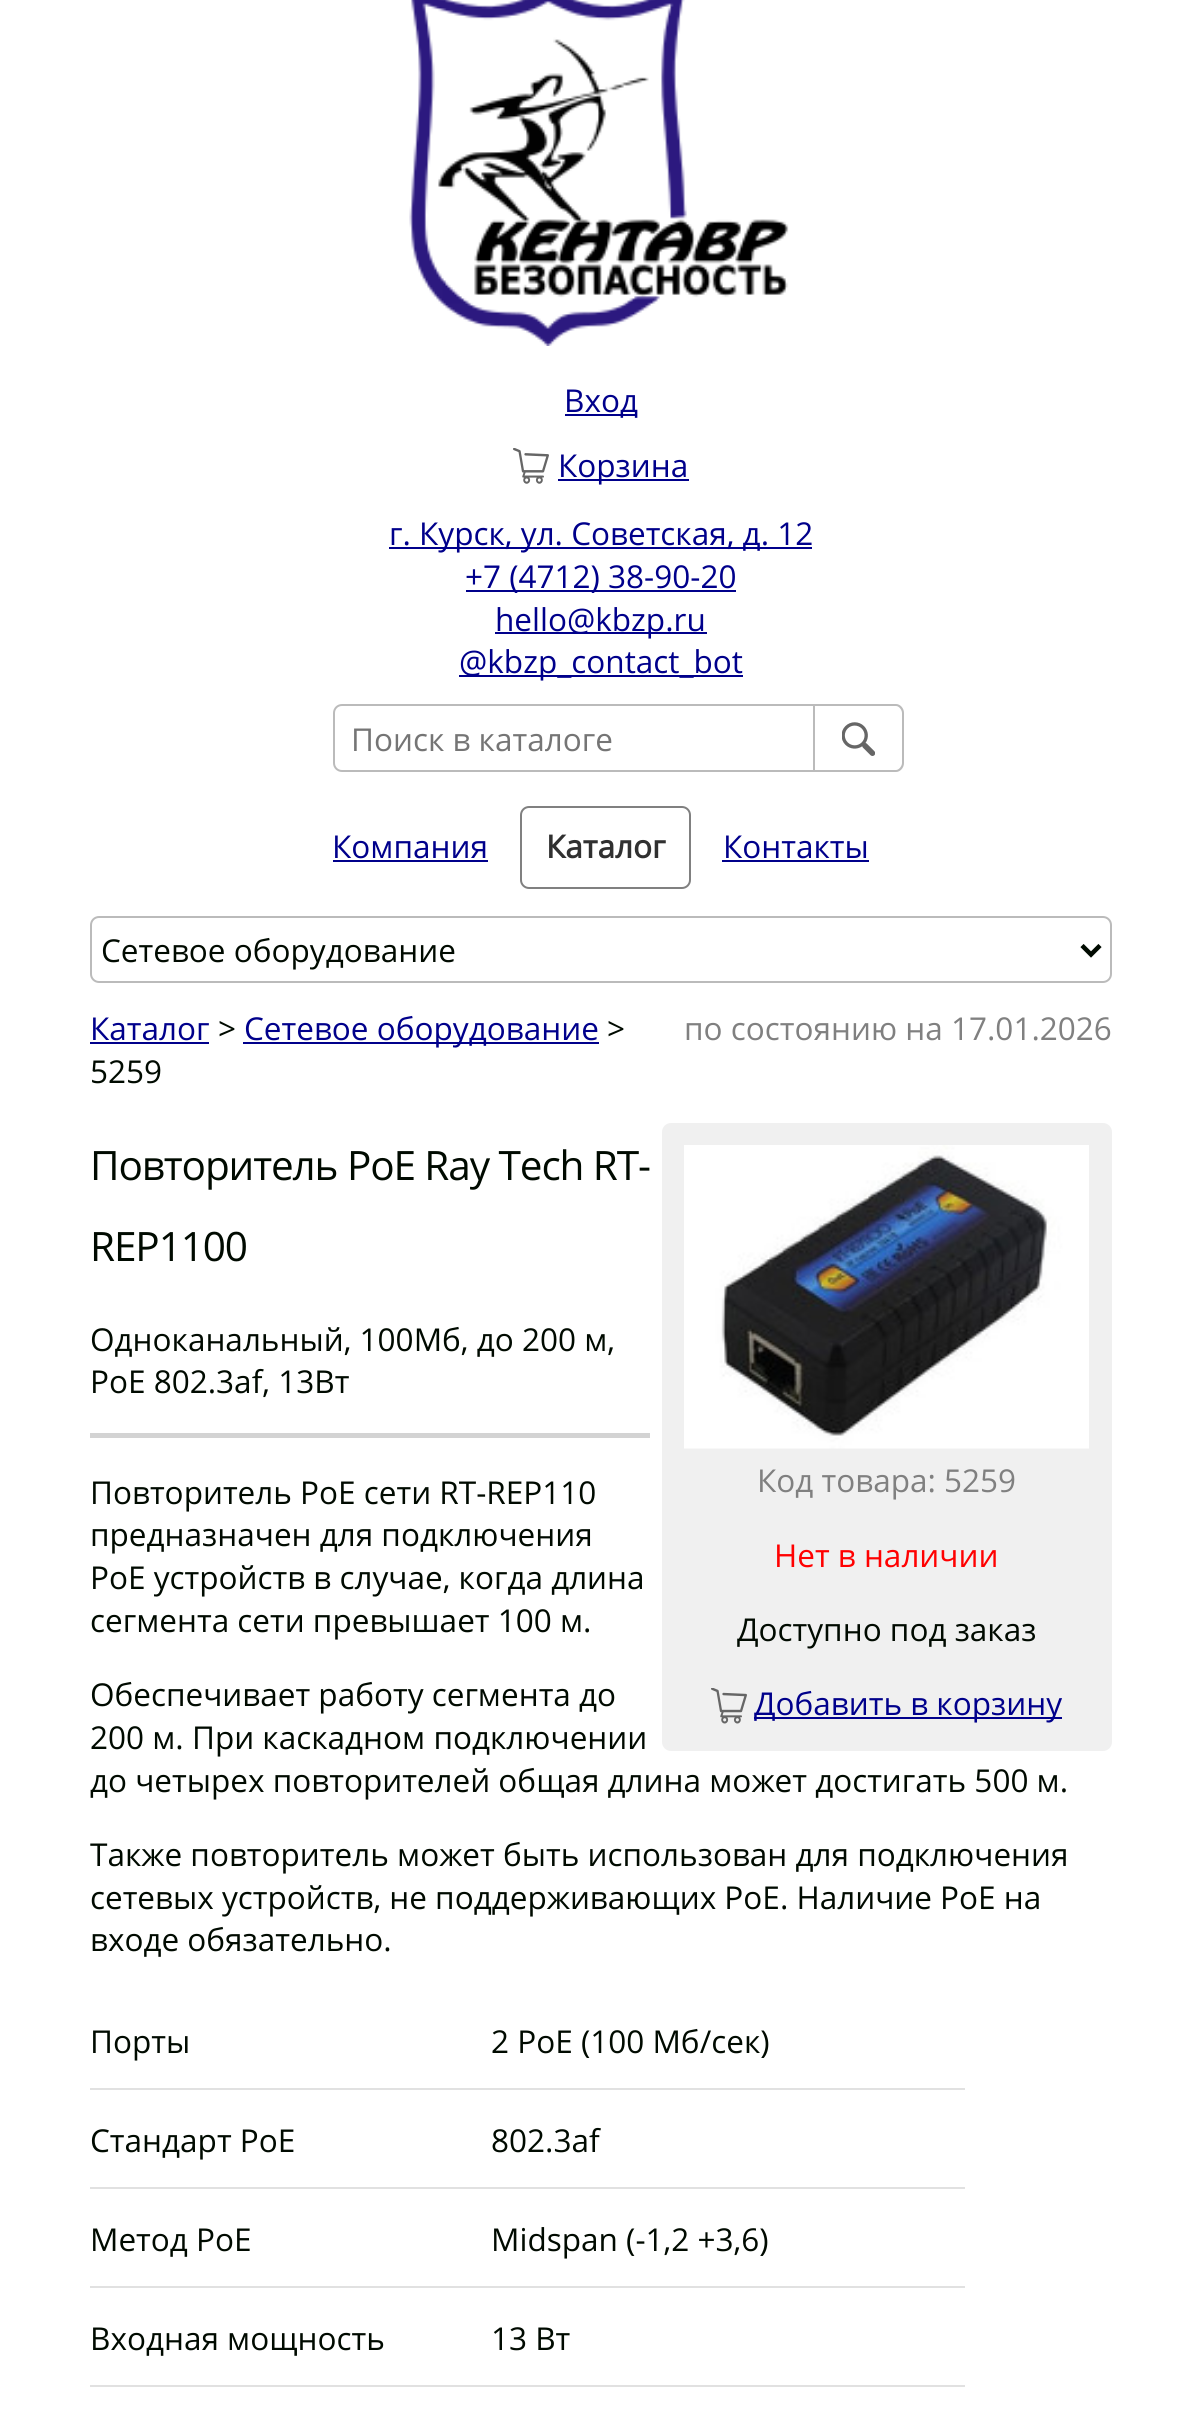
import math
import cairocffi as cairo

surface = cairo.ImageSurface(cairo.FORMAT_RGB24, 1200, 2436)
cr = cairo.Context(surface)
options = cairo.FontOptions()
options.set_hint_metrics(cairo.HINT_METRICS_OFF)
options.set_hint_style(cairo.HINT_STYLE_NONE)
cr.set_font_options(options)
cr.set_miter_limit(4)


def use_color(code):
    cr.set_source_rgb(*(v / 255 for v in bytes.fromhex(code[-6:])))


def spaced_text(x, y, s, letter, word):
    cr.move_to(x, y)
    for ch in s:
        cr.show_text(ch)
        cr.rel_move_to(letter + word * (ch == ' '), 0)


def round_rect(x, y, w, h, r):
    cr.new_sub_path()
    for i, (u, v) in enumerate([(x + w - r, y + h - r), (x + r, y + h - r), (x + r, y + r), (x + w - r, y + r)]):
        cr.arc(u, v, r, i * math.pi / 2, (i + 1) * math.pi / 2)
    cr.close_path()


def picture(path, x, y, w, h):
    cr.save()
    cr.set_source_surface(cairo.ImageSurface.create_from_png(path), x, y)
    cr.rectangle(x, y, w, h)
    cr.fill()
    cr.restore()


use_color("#ffffff")
cr.paint()
picture("img1.png", 409, 0, 380, 346)
use_color("#00008b")
cr.rectangle(565, 414, 72, 2)
cr.fill()
cr.select_font_face("Open Sans")
cr.set_font_size(31.5)
cr.move_to(564, 412)
cr.show_text("Вход")
picture("img2.png", 513, 448, 36, 36)
cr.rectangle(558, 479, 131, 2)
cr.fill()
cr.move_to(558, 477)
cr.show_text("Корзина")
cr.rectangle(389, 547, 423, 2)
cr.fill()
cr.move_to(389, 545)
cr.show_text("г. Курск, ул. Советская, д. 12")
cr.rectangle(466, 590, 270, 2)
cr.fill()
cr.move_to(465, 588)
cr.show_text("+7 (4712) 38-90-20")
cr.rectangle(495, 632, 212, 2)
cr.fill()
cr.move_to(495, 631)
cr.show_text("hello@kbzp.ru")
cr.rectangle(459, 675, 284, 2)
cr.fill()
cr.move_to(459, 673)
cr.show_text("@kbzp_contact_bot")
cr.new_path()
cr.move_to(342, 705)
cr.line_to(814, 705)
cr.line_to(814, 771)
cr.line_to(342, 771)
cr.curve_to(337.5, 771, 334, 767.5, 334, 763)
cr.line_to(334, 713)
cr.curve_to(334, 708.5, 337.5, 705, 342, 705)
cr.close_path()
use_color("#bbbbbb")
cr.stroke()
use_color("#757575")
cr.move_to(351, 751)
cr.show_text("Поиск в каталоге")
use_color("#bbbbbb")
cr.set_fill_rule(cairo.FILL_RULE_EVEN_ODD)
cr.new_path()
cr.move_to(814, 704)
cr.line_to(896, 704)
cr.curve_to(900, 704, 904, 708, 904, 713)
cr.line_to(904, 763)
cr.curve_to(904, 768, 900, 772, 896, 772)
cr.line_to(814, 772)
cr.close_path()
cr.move_to(814, 706)
cr.line_to(896, 706)
cr.curve_to(899, 706, 902, 710, 902, 713)
cr.line_to(902, 763)
cr.curve_to(902, 766, 899, 770, 896, 770)
cr.line_to(814, 770)
cr.close_path()
cr.fill()
picture("img3.png", 842, 722, 33, 34)
use_color("#00008b")
cr.move_to(332, 858)
cr.show_text("Компания")
cr.rectangle(333, 860, 155, 2)
cr.fill()
round_rect(521, 807, 169, 81, 8)
use_color("#808080")
cr.stroke()
cr.select_font_face("Open Sans", cairo.FONT_SLANT_NORMAL, cairo.FONT_WEIGHT_BOLD)
use_color("#303030")
cr.move_to(546, 858)
cr.show_text("Каталог")
cr.select_font_face("Open Sans")
use_color("#00008b")
cr.move_to(723, 858)
cr.show_text("Контакты")
cr.rectangle(722, 860, 147, 2)
cr.fill()
round_rect(91, 917, 1020, 65, 8)
use_color("#bbbbbb")
cr.stroke()
cr.new_path()
cr.move_to(1082, 945.5)
cr.line_to(1091, 954.5)
cr.line_to(1100, 945.5)
use_color("#000a00")
cr.set_line_width(4.5)
cr.stroke()
cr.move_to(101, 962)
cr.show_text("Сетевое оборудование")
use_color("#00008b")
cr.move_to(90, 1040)
cr.show_text("Каталог")
cr.rectangle(90, 1042, 119, 2)
cr.fill()
use_color("#000a00")
cr.move_to(218, 1040)
cr.show_text(">")
use_color("#00008b")
cr.rectangle(243, 1042, 356, 2)
cr.fill()
cr.move_to(244, 1040)
cr.show_text("Сетевое оборудование")
use_color("#000a00")
cr.move_to(607, 1040)
cr.show_text(">")
use_color("#808080")
cr.move_to(684, 1040)
cr.show_text("по состоянию на 17.01.2026")
use_color("#000a00")
cr.move_to(90, 1083)
cr.show_text("5259")
cr.set_font_size(40.5)
spaced_text(90, 1180, "Повторитель PoE Ray Tech RT-", -1.1, 0)
spaced_text(90, 1261, "REP1100", -1.1, 0)
cr.set_font_size(31.5)
cr.move_to(90, 1351)
cr.show_text("Одноканальный, 100Мб, до 200 м,")
cr.move_to(90, 1393)
cr.show_text("PoE 802.3af, 13Вт")
use_color("#f0f0f0")
round_rect(662, 1123, 450, 628, 9)
cr.fill()
picture("img4.png", 684, 1145, 405, 304)
use_color("#808080")
cr.move_to(757, 1492)
cr.show_text("Код товара: 5259")
use_color("#ff0000")
cr.move_to(774, 1567)
cr.show_text("Нет в наличии")
use_color("#000a00")
cr.move_to(737, 1641)
cr.show_text("Доступно под заказ")
picture("img5.png", 711, 1688, 36, 36)
use_color("#00008b")
cr.rectangle(754, 1717, 308, 2)
cr.fill()
cr.move_to(754, 1715)
cr.show_text("Добавить в корзину")
use_color("#d3d3d3")
cr.rectangle(90, 1433, 560, 5)
cr.fill()
use_color("#000a00")
cr.move_to(90, 1504)
cr.show_text("Повторитель PoE сети RT-REP110")
cr.move_to(90, 1546)
cr.show_text("предназначен для подключения")
cr.move_to(90, 1589)
cr.show_text("PoE устройств в случае, когда длина")
cr.move_to(90, 1632)
cr.show_text("сегмента сети превышает 100 м.")
cr.move_to(90, 1706)
cr.show_text("Обеспечивает работу сегмента до")
cr.move_to(90, 1749)
cr.show_text("200 м. При каскадном подключении")
cr.move_to(90, 1792)
cr.show_text("до четырех повторителей общая длина может достигать 500 м.")
cr.move_to(90, 1866)
cr.show_text("Также повторитель может быть использован для подключения")
cr.move_to(90, 1909)
cr.show_text("сетевых устройств, не поддерживающих PoE. Наличие PoE на")
cr.move_to(90, 1951)
cr.show_text("входе обязательно.")
cr.move_to(90, 2053)
cr.show_text("Порты")
use_color("#e1e1e1")
cr.rectangle(90, 2088, 875, 2)
cr.fill()
use_color("#000a00")
cr.move_to(491, 2053)
cr.show_text("2 PoE (100 Мб/сек)")
cr.move_to(90, 2152)
cr.show_text("Стандарт PoE")
use_color("#e1e1e1")
cr.rectangle(90, 2187, 875, 2)
cr.fill()
use_color("#000a00")
cr.move_to(491, 2152)
cr.show_text("802.3af")
cr.move_to(90, 2251)
cr.show_text("Метод PoE")
use_color("#e1e1e1")
cr.rectangle(90, 2286, 875, 2)
cr.fill()
use_color("#000a00")
cr.move_to(491, 2251)
cr.show_text("Midspan (-1,2 +3,6)")
cr.move_to(90, 2350)
cr.show_text("Входная мощность")
use_color("#e1e1e1")
cr.rectangle(90, 2385, 875, 2)
cr.fill()
use_color("#000a00")
cr.move_to(491, 2350)
cr.show_text("13 Вт")
surface.write_to_png("result.png")
